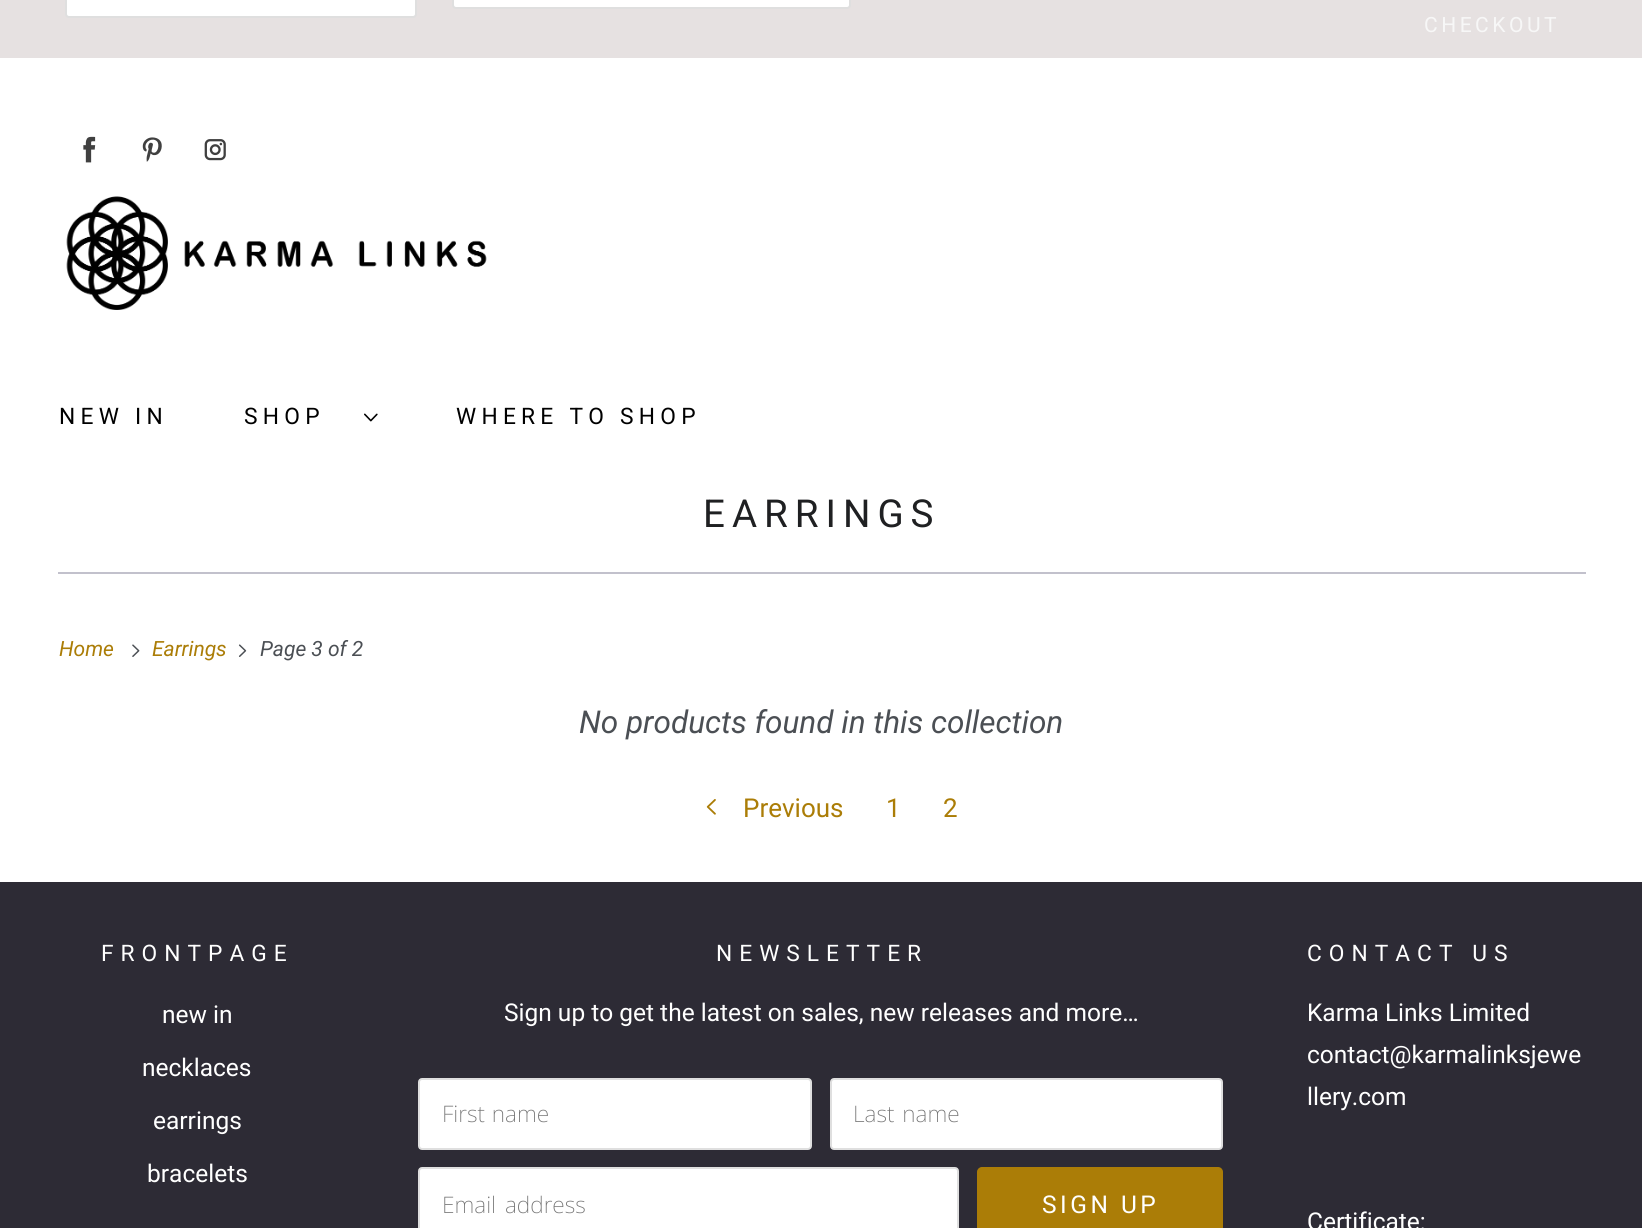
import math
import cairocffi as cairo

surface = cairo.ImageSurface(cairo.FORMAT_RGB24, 1642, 1228)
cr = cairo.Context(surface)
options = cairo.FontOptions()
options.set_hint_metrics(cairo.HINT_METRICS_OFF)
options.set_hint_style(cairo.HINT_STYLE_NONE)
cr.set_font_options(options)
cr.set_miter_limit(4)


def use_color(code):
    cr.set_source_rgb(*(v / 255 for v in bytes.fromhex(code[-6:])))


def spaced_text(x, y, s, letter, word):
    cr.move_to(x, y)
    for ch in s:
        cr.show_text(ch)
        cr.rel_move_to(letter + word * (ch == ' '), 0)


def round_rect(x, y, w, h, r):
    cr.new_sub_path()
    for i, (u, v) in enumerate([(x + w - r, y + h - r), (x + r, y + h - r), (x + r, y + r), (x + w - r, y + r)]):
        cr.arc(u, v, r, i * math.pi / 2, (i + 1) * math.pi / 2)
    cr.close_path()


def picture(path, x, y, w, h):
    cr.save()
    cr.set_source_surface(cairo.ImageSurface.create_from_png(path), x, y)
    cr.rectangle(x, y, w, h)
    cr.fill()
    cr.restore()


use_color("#ffffff")
cr.paint()
use_color("#e6e1e1")
cr.rectangle(0, 0, 1642, 58)
cr.fill()
use_color("#ffffff")
round_rect(66, -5, 350, 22, 3)
cr.fill_preserve()
use_color("#dfdfdf")
cr.stroke()
use_color("#ffffff")
round_rect(453, -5, 397, 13, 3)
cr.fill_preserve()
use_color("#dfdfdf")
cr.stroke()
cr.select_font_face("Roboto")
cr.set_font_size(21)
use_color("#f7f7f7")
spaced_text(1424, 32, "CHECKOUT", 3.5, 0)
picture("img1.png", 83, 136, 13, 27)
picture("img2.png", 142, 137, 20, 25)
picture("img3.png", 204, 139, 22, 22)
picture("img4.png", 66, 196, 421, 114)
cr.set_font_size(22.75)
use_color("#000000")
spaced_text(59, 424, "NEW IN", 5.25, 0)
spaced_text(244, 424, "SHOP", 5.25, 0)
picture("img5.png", 364, 413, 14, 9)
spaced_text(456, 424, "WHERE TO SHOP", 5.25, 0)
use_color("#c2c1cc")
cr.rectangle(58, 572, 1528, 2)
cr.fill()
cr.set_font_size(38.5)
use_color("#1f2022")
spaced_text(703, 527, "EARRINGS", 7, 0)
cr.select_font_face("Roboto", cairo.FONT_SLANT_ITALIC)
cr.set_font_size(21)
use_color("#ab7d07")
cr.move_to(59, 656)
cr.show_text("Home")
picture("img6.png", 132, 644, 8, 13)
cr.move_to(152, 656)
cr.show_text("Earrings")
picture("img7.png", 238, 644, 9, 13)
use_color("#4b4f54")
cr.move_to(260, 656)
cr.show_text("Page 3 of 2")
cr.set_font_size(31.5)
cr.move_to(579, 733)
cr.show_text("No products found in this collection")
picture("img8.png", 706, 799, 10, 16)
cr.select_font_face("Roboto")
cr.set_font_size(26)
use_color("#ab7d07")
cr.move_to(743, 817)
cr.show_text("Previous")
cr.move_to(886, 817)
cr.show_text("1")
cr.move_to(943, 817)
cr.show_text("2")
use_color("#2d2b35")
cr.rectangle(0, 882, 1642, 346)
cr.fill()
cr.set_font_size(22.75)
use_color("#ffffff")
spaced_text(101, 961, "FRONTPAGE", 7, 0)
cr.set_font_size(24.5)
cr.move_to(162, 1023)
cr.show_text("new in")
cr.move_to(142, 1076)
cr.show_text("necklaces")
cr.move_to(153, 1129)
cr.show_text("earrings")
cr.move_to(147, 1182)
cr.show_text("bracelets")
cr.set_font_size(22.75)
spaced_text(716, 961, "NEWSLETTER", 7, 0)
cr.set_font_size(24.5)
cr.move_to(504, 1021)
cr.show_text("Sign up to get the latest on sales, new releases and more…")
round_rect(419, 1079, 392, 70, 3)
cr.fill_preserve()
use_color("#dfdfdf")
cr.stroke()
cr.select_font_face("Noto Sans ExtraLight")
cr.set_font_size(22.75)
use_color("#757575")
spaced_text(442, 1122, "First name", 0, 1)
use_color("#ffffff")
round_rect(831, 1079, 391, 70, 3)
cr.fill_preserve()
use_color("#dfdfdf")
cr.stroke()
use_color("#757575")
spaced_text(853, 1122, "Last name", 0, 2)
use_color("#ffffff")
round_rect(419, 1168, 539, 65, 3)
cr.fill_preserve()
use_color("#dfdfdf")
cr.stroke()
use_color("#757575")
spaced_text(442, 1213, "Email address", 0, 3)
use_color("#ab7d07")
round_rect(978, 1168, 244, 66, 4)
cr.fill_preserve()
cr.stroke()
cr.select_font_face("Roboto")
cr.set_font_size(24.5)
use_color("#ffffff")
spaced_text(1042, 1213, "SIGN UP", 3.5, 0)
cr.set_font_size(22.75)
spaced_text(1307, 961, "CONTACT US", 7, 0)
cr.set_font_size(24.5)
cr.move_to(1307, 1021)
cr.show_text("Karma Links Limited")
cr.move_to(1307, 1063)
cr.show_text("contact@karmalinksjewe")
cr.move_to(1307, 1105)
cr.show_text("llery.com")
cr.move_to(1307, 1230)
cr.show_text("Certificate:")
surface.write_to_png("result.png")
